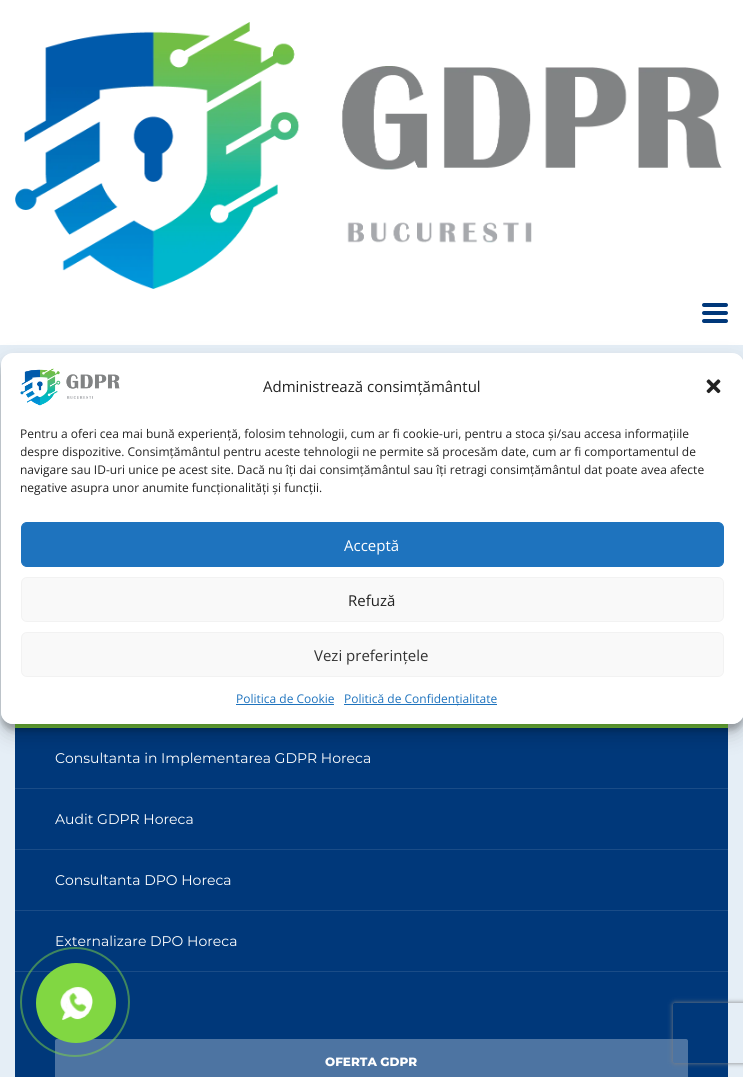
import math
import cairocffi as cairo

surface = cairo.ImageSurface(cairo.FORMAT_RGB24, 743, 1077)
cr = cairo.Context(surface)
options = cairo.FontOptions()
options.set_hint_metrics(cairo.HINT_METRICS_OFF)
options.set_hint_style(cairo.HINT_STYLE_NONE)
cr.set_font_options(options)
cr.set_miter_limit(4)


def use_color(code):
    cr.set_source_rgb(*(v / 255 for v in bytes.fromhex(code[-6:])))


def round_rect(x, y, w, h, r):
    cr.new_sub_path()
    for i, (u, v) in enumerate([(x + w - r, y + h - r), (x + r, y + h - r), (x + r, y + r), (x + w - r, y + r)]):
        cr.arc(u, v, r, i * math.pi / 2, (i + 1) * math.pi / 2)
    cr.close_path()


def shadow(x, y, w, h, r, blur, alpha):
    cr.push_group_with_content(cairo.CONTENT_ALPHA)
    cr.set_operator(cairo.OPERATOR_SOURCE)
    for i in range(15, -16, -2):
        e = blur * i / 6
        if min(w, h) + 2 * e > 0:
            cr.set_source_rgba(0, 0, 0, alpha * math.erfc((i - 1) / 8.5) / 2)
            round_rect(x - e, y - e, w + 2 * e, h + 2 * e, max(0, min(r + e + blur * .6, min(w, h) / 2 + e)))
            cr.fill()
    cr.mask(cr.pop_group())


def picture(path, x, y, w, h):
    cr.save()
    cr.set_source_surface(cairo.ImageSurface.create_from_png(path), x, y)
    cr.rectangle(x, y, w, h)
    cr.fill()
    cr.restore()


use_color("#ffffff")
cr.paint()
use_color("#e5eef6")
cr.rectangle(0, 345, 743, 732)
cr.fill()
use_color("#81d742")
cr.rectangle(15, 724, 713, 4)
cr.fill()
use_color("#00387a")
cr.rectangle(15, 728, 713, 243)
cr.fill()
cr.save()
cr.set_fill_rule(cairo.FILL_RULE_EVEN_ODD)
cr.new_path()
cr.move_to(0, 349)
cr.line_to(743, 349)
cr.line_to(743, 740)
cr.line_to(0, 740)
cr.close_path()
cr.move_to(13, 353)
cr.line_to(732, 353)
cr.curve_to(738.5, 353, 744, 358.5, 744, 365)
cr.line_to(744, 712)
cr.curve_to(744, 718.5, 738.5, 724, 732, 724)
cr.line_to(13, 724)
cr.curve_to(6.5, 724, 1, 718.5, 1, 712)
cr.line_to(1, 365)
cr.curve_to(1, 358.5, 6.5, 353, 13, 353)
cr.close_path()
cr.clip()
use_color("#000000")
shadow(1, 359, 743, 371, 12, 3, 0.23)
cr.restore()
cr.save()
cr.set_fill_rule(cairo.FILL_RULE_EVEN_ODD)
cr.new_path()
cr.move_to(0, 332)
cr.line_to(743, 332)
cr.line_to(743, 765)
cr.line_to(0, 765)
cr.close_path()
cr.move_to(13, 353)
cr.line_to(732, 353)
cr.curve_to(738.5, 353, 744, 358.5, 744, 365)
cr.line_to(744, 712)
cr.curve_to(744, 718.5, 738.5, 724, 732, 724)
cr.line_to(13, 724)
cr.curve_to(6.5, 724, 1, 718.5, 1, 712)
cr.line_to(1, 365)
cr.curve_to(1, 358.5, 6.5, 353, 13, 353)
cr.close_path()
cr.clip()
use_color("#000000")
shadow(1, 363, 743, 371, 12, 10, 0.19)
cr.restore()
use_color("#ffffff")
round_rect(1, 353, 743, 371, 12)
cr.fill()
picture("img1.png", 20, 368, 100, 38)
cr.select_font_face("Open Sans")
cr.set_font_size(15)
use_color("#222222")
cr.move_to(263, 392)
cr.show_text("Administrează consimțământul")
picture("img2.png", 706, 379, 15, 15)
cr.set_font_size(12)
cr.move_to(20, 438)
cr.show_text("Pentru a oferi cea mai bună experiență, folosim tehnologii, cum ar fi cookie-uri, pentru a stoca și/sau accesa informațiile")
cr.save()
cr.rectangle(21, 425, 703, 77)
cr.clip()
cr.move_to(20, 456)
cr.show_text("despre dispozitive. Consimțământul pentru aceste tehnologii ne permite să procesăm date, cum ar fi comportamentul de")
cr.restore()
cr.move_to(20, 474)
cr.show_text("navigare sau ID-uri unice pe acest site. Dacă nu îți dai consimțământul sau îți retragi consimțământul dat poate avea afecte")
cr.move_to(20, 492)
cr.show_text("negative asupra unor anumite funcționalități și funcții.")
use_color("#1e73be")
round_rect(21.5, 522.5, 702, 44, 5.5)
cr.fill_preserve()
cr.set_line_width(1)
cr.stroke()
cr.set_font_size(15)
use_color("#ffffff")
cr.move_to(344, 551)
cr.show_text("Acceptă")
use_color("#f9f9f9")
round_rect(21.5, 577.5, 702, 44, 5.5)
cr.fill_preserve()
use_color("#f2f2f2")
cr.stroke()
use_color("#222222")
cr.move_to(348, 606)
cr.show_text("Refuză")
use_color("#f9f9f9")
round_rect(21.5, 632.5, 702, 44, 5.5)
cr.fill_preserve()
use_color("#f2f2f2")
cr.stroke()
use_color("#333333")
cr.move_to(314, 661)
cr.show_text("Vezi preferințele")
cr.set_font_size(12)
use_color("#1e73be")
cr.move_to(236, 703)
cr.show_text("Politica de Cookie")
cr.rectangle(236, 704, 98, 1)
cr.fill()
cr.rectangle(344, 704, 153, 1)
cr.fill()
cr.move_to(344, 703)
cr.show_text("Politică de Confidențialitate")
picture("img3.png", 15, 22, 707, 267)
use_color("#00387a")
round_rect(702, 311, 26, 4, 2)
cr.fill()
round_rect(702, 303, 26, 4, 2)
cr.fill()
round_rect(702, 319, 26, 4, 2)
cr.fill()
use_color("#1a4c87")
cr.rectangle(15, 788, 713, 1)
cr.fill()
cr.select_font_face("Montserrat")
cr.set_font_size(14)
use_color("#ffffff")
cr.move_to(55, 763)
cr.show_text("Consultanta in Implementarea GDPR Horeca")
use_color("#1a4c87")
cr.rectangle(15, 849, 713, 1)
cr.fill()
use_color("#ffffff")
cr.move_to(55, 824)
cr.show_text("Audit GDPR Horeca")
use_color("#1a4c87")
cr.rectangle(15, 910, 713, 1)
cr.fill()
use_color("#ffffff")
cr.move_to(55, 885)
cr.show_text("Consultanta DPO Horeca")
use_color("#1a4c87")
cr.rectangle(15, 971, 713, 1)
cr.fill()
use_color("#ffffff")
cr.move_to(55, 946)
cr.show_text("Externalizare DPO Horeca")
use_color("#00387a")
cr.rectangle(15, 972, 713, 105)
cr.fill()
use_color("#4d74a2")
round_rect(55, 1039, 633, 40, 2)
cr.fill()
cr.select_font_face("Montserrat ExtraBold")
cr.set_font_size(12)
use_color("#ffffff")
cr.move_to(325, 1066)
cr.show_text("OFERTA GDPR")
cr.new_path()
cr.arc(75, 1002, 54, 0, 2 * math.pi)
cr.set_source_rgba(0.506, 0.843, 0.259, 0.5)
cr.set_line_width(2)
cr.stroke()
use_color("#81d742")
cr.arc(76, 1003, 40, 0, 2 * math.pi)
cr.fill()
picture("img4.png", 60, 986, 33, 34)
cr.save()
cr.set_fill_rule(cairo.FILL_RULE_EVEN_ODD)
cr.new_path()
cr.move_to(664, 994)
cr.line_to(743, 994)
cr.line_to(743, 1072)
cr.line_to(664, 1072)
cr.close_path()
cr.move_to(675, 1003)
cr.line_to(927, 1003)
cr.curve_to(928, 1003, 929, 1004, 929, 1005)
cr.line_to(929, 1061)
cr.curve_to(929, 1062, 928, 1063, 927, 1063)
cr.line_to(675, 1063)
cr.curve_to(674, 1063, 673, 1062, 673, 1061)
cr.line_to(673, 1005)
cr.curve_to(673, 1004, 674, 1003, 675, 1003)
cr.close_path()
cr.clip()
use_color("#808080")
shadow(673, 1003, 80, 60, 2, 2.5, 1)
cr.restore()
surface.write_to_png("result.png")
